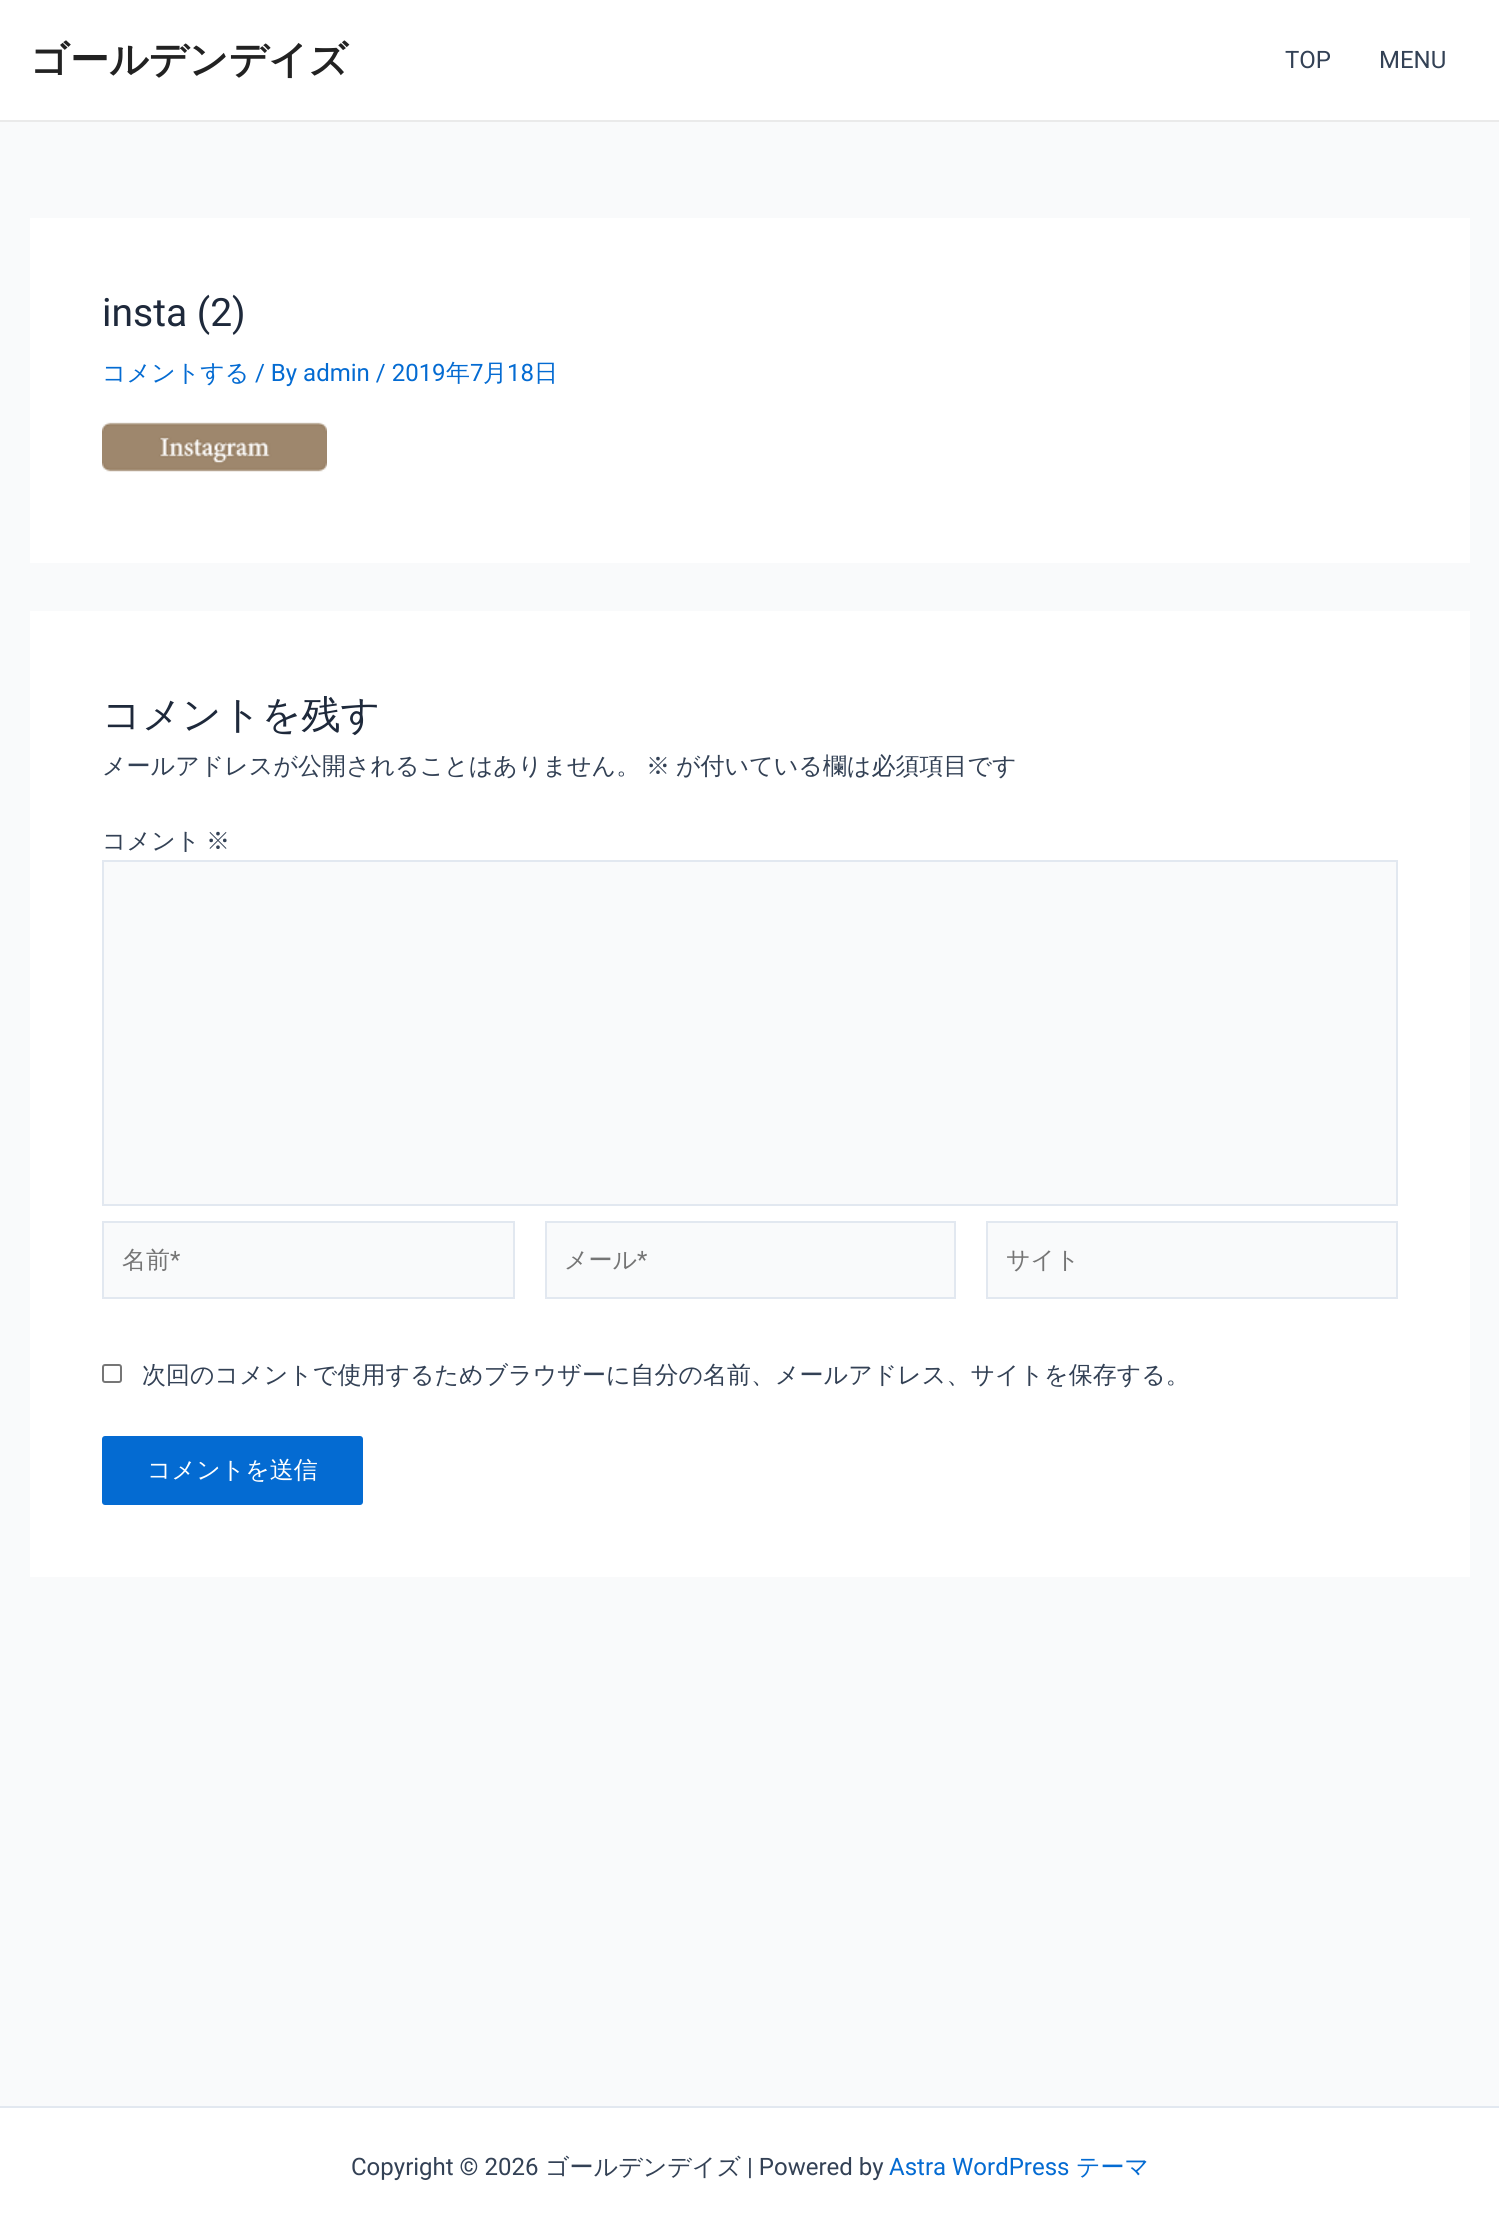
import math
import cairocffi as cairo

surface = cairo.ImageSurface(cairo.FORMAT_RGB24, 1499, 2225)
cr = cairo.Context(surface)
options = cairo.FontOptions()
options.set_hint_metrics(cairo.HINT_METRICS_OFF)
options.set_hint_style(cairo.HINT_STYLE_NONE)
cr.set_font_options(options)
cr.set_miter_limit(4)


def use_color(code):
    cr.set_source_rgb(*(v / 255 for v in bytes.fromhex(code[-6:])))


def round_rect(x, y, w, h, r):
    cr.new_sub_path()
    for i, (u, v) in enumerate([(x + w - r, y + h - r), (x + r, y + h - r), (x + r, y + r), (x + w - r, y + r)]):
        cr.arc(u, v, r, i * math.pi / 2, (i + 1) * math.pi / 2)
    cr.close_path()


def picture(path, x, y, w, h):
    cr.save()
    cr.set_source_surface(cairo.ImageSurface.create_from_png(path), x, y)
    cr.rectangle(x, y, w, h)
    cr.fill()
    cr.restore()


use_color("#f9fafb")
cr.paint()
use_color("#ffffff")
cr.rectangle(0, 0, 1499, 120)
cr.fill()
use_color("#eaeaea")
cr.rectangle(0, 120, 1499, 2)
cr.fill()
cr.select_font_face("WenQuanYi Zen Hei", cairo.FONT_SLANT_NORMAL, cairo.FONT_WEIGHT_BOLD)
cr.set_font_size(39)
use_color("#222222")
cr.move_to(30, 73)
cr.show_text("ゴールデンデイズ")
cr.select_font_face("Roboto")
cr.set_font_size(24)
use_color("#334155")
cr.move_to(1285, 68)
cr.show_text("TOP")
cr.move_to(1379, 68)
cr.show_text("MENU")
use_color("#ffffff")
cr.rectangle(30, 218, 1440, 345)
cr.fill()
cr.set_font_size(39)
use_color("#1e293b")
cr.move_to(102, 326)
cr.show_text("insta (2)")
cr.select_font_face("WenQuanYi Zen Hei Medium")
cr.set_font_size(24)
use_color("#046bd2")
cr.move_to(102, 381)
cr.show_text("コメントする")
cr.select_font_face("Roboto")
cr.move_to(255, 381)
cr.show_text("/ By admin / 2019")
cr.select_font_face("WenQuanYi Zen Hei Medium")
cr.move_to(446, 381)
cr.show_text("年")
cr.select_font_face("Roboto")
cr.move_to(470, 381)
cr.show_text("7")
cr.select_font_face("WenQuanYi Zen Hei Medium")
cr.move_to(483, 381)
cr.show_text("月")
cr.select_font_face("Roboto")
cr.move_to(507, 381)
cr.show_text("18")
cr.select_font_face("WenQuanYi Zen Hei Medium")
cr.move_to(534, 381)
cr.show_text("日")
picture("img1.png", 102, 422, 225, 50)
use_color("#ffffff")
cr.rectangle(30, 611, 1440, 966)
cr.fill()
cr.set_font_size(39)
use_color("#1e293b")
cr.move_to(102, 728)
cr.show_text("コメントを残す")
cr.set_font_size(24)
use_color("#334155")
cr.move_to(102, 774)
cr.show_text("メールアドレスが公開されることはありません。")
cr.move_to(646, 774)
cr.show_text("※")
cr.move_to(676, 774)
cr.show_text("が付いている欄は必須項目です")
cr.move_to(102, 849)
cr.show_text("コメント")
cr.move_to(206, 849)
cr.show_text("※")
use_color("#f9fafb")
cr.rectangle(103, 861, 1294, 344)
cr.fill_preserve()
use_color("#e2e8f0")
cr.stroke()
use_color("#f9fafb")
cr.rectangle(103, 1222, 411, 76)
cr.fill_preserve()
use_color("#e2e8f0")
cr.stroke()
use_color("#757575")
cr.move_to(122, 1268)
cr.show_text("名前")
cr.select_font_face("Roboto")
cr.move_to(170, 1268)
cr.show_text("*")
use_color("#f9fafb")
cr.rectangle(546, 1222, 409, 76)
cr.fill_preserve()
use_color("#e2e8f0")
cr.stroke()
cr.select_font_face("WenQuanYi Zen Hei Medium")
use_color("#757575")
cr.move_to(564, 1268)
cr.show_text("メール")
cr.select_font_face("Roboto")
cr.move_to(637, 1268)
cr.show_text("*")
use_color("#f9fafb")
cr.rectangle(987, 1222, 410, 76)
cr.fill_preserve()
use_color("#e2e8f0")
cr.stroke()
cr.select_font_face("WenQuanYi Zen Hei Medium")
use_color("#757575")
cr.move_to(1006, 1268)
cr.show_text("サイト")
round_rect(103, 1365, 18, 17, 2)
use_color("#767676")
cr.stroke()
use_color("#334155")
cr.move_to(142, 1383)
cr.show_text("次回のコメントで使用するためブラウザーに自分の名前、メールアドレス、サイトを保存する。")
use_color("#046bd2")
round_rect(102, 1436, 261, 69, 3)
cr.fill()
use_color("#ffffff")
cr.move_to(147, 1478)
cr.show_text("コメントを送信")
cr.rectangle(0, 2108, 1499, 117)
cr.fill()
use_color("#e2e8f0")
cr.rectangle(0, 2106, 1499, 2)
cr.fill()
cr.select_font_face("Roboto")
use_color("#334155")
cr.move_to(351, 2175)
cr.show_text("Copyright © 2026")
cr.select_font_face("WenQuanYi Zen Hei Medium")
cr.move_to(545, 2175)
cr.show_text("ゴールデンデイズ")
cr.select_font_face("Roboto")
cr.move_to(747, 2175)
cr.show_text("| Powered by")
use_color("#046bd2")
cr.move_to(889, 2175)
cr.show_text("Astra WordPress")
cr.select_font_face("WenQuanYi Zen Hei Medium")
cr.move_to(1076, 2175)
cr.show_text("テーマ")
surface.write_to_png("result.png")
